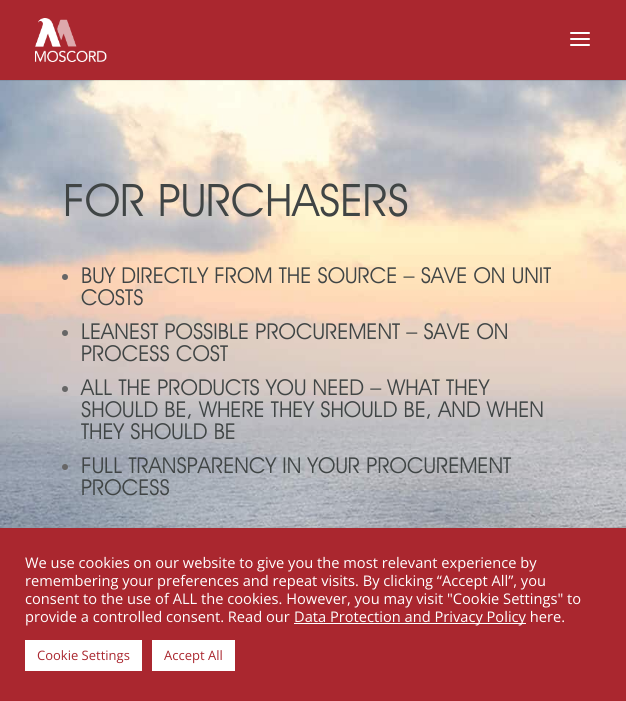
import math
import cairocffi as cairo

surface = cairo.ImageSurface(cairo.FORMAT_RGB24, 626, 701)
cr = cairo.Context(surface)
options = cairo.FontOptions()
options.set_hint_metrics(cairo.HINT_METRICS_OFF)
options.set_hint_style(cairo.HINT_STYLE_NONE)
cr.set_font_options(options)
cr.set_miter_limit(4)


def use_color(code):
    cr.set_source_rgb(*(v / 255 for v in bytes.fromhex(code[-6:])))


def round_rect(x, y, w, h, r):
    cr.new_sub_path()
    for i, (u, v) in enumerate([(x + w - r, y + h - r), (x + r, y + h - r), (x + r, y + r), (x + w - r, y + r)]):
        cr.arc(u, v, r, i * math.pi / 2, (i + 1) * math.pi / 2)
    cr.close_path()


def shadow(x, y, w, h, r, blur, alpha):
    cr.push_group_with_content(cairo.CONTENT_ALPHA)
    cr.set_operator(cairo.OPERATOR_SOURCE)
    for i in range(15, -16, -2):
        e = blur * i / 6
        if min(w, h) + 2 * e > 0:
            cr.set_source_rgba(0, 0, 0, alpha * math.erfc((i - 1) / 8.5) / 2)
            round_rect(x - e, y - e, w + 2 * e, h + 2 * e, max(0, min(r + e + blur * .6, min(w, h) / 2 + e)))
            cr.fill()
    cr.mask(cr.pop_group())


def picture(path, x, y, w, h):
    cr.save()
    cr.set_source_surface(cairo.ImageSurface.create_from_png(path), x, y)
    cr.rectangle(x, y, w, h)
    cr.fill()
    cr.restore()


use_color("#ffffff")
cr.paint()
picture("img3.png", 0, 80, 626, 448)
cr.set_source_rgba(0, 0, 0, 0.1)
cr.rectangle(0, 80, 626, 1)
cr.fill()
use_color("#aa272f")
cr.rectangle(0, 0, 626, 80)
cr.fill()
picture("img1.png", 35, 18, 72, 44)
picture("img2.png", 570, 32, 20, 14)
cr.select_font_face("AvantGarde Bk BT")
cr.set_font_size(45)
use_color("#404545")
cr.move_to(63, 216)
cr.show_text("FOR PURCHASERS")
use_color("#666666")
cr.new_path()
cr.arc(65, 277, 3, 0, 2 * math.pi)
cr.fill()
cr.set_font_size(22)
use_color("#404545")
cr.move_to(81, 283)
cr.show_text("BUY DIRECTLY FROM THE SOURCE – SAVE ON UNIT")
cr.move_to(81, 305)
cr.show_text("COSTS")
use_color("#666666")
cr.new_path()
cr.arc(65, 333, 3, 0, 2 * math.pi)
cr.fill()
use_color("#404545")
cr.move_to(81, 339)
cr.show_text("LEANEST POSSIBLE PROCUREMENT – SAVE ON")
cr.move_to(81, 361)
cr.show_text("PROCESS COST")
use_color("#666666")
cr.new_path()
cr.arc(65, 389, 3, 0, 2 * math.pi)
cr.fill()
use_color("#404545")
cr.move_to(81, 395)
cr.show_text("ALL THE PRODUCTS YOU NEED – WHAT THEY")
cr.move_to(81, 417)
cr.show_text("SHOULD BE, WHERE THEY SHOULD BE, AND WHEN")
cr.move_to(81, 439)
cr.show_text("THEY SHOULD BE")
use_color("#666666")
cr.new_path()
cr.arc(65, 467, 3, 0, 2 * math.pi)
cr.fill()
use_color("#404545")
cr.move_to(81, 473)
cr.show_text("FULL TRANSPARENCY IN YOUR PROCUREMENT")
cr.move_to(81, 495)
cr.show_text("PROCESS")
use_color("#acabab")
shadow(0, 527, 626, 173, 0, 5, 0.3)
use_color("#aa272f")
cr.rectangle(0, 528, 626, 173)
cr.fill()
cr.select_font_face("Open Sans")
cr.set_font_size(14.65)
use_color("#ffffff")
cr.move_to(25, 568)
cr.show_text("We use cookies on our website to give you the most relevant experience by")
cr.move_to(25, 586)
cr.show_text("remembering your preferences and repeat visits. By clicking “Accept All”, you")
cr.move_to(25, 604)
cr.show_text("consent to the use of ALL the cookies. However, you may visit \"Cookie Settings\" to")
cr.move_to(25, 622)
cr.show_text("provide a controlled consent. Read our")
cr.rectangle(294, 623, 232, 1)
cr.fill()
cr.move_to(294, 622)
cr.show_text("Data Protection and Privacy Policy here.")
cr.rectangle(25, 640, 117, 31)
cr.fill()
cr.set_font_size(13)
use_color("#aa272f")
cr.move_to(37, 660)
cr.show_text("Cookie Settings")
use_color("#ffffff")
cr.rectangle(152, 640, 83, 31)
cr.fill()
use_color("#aa272f")
cr.move_to(164, 660)
cr.show_text("Accept All")
surface.write_to_png("result.png")
